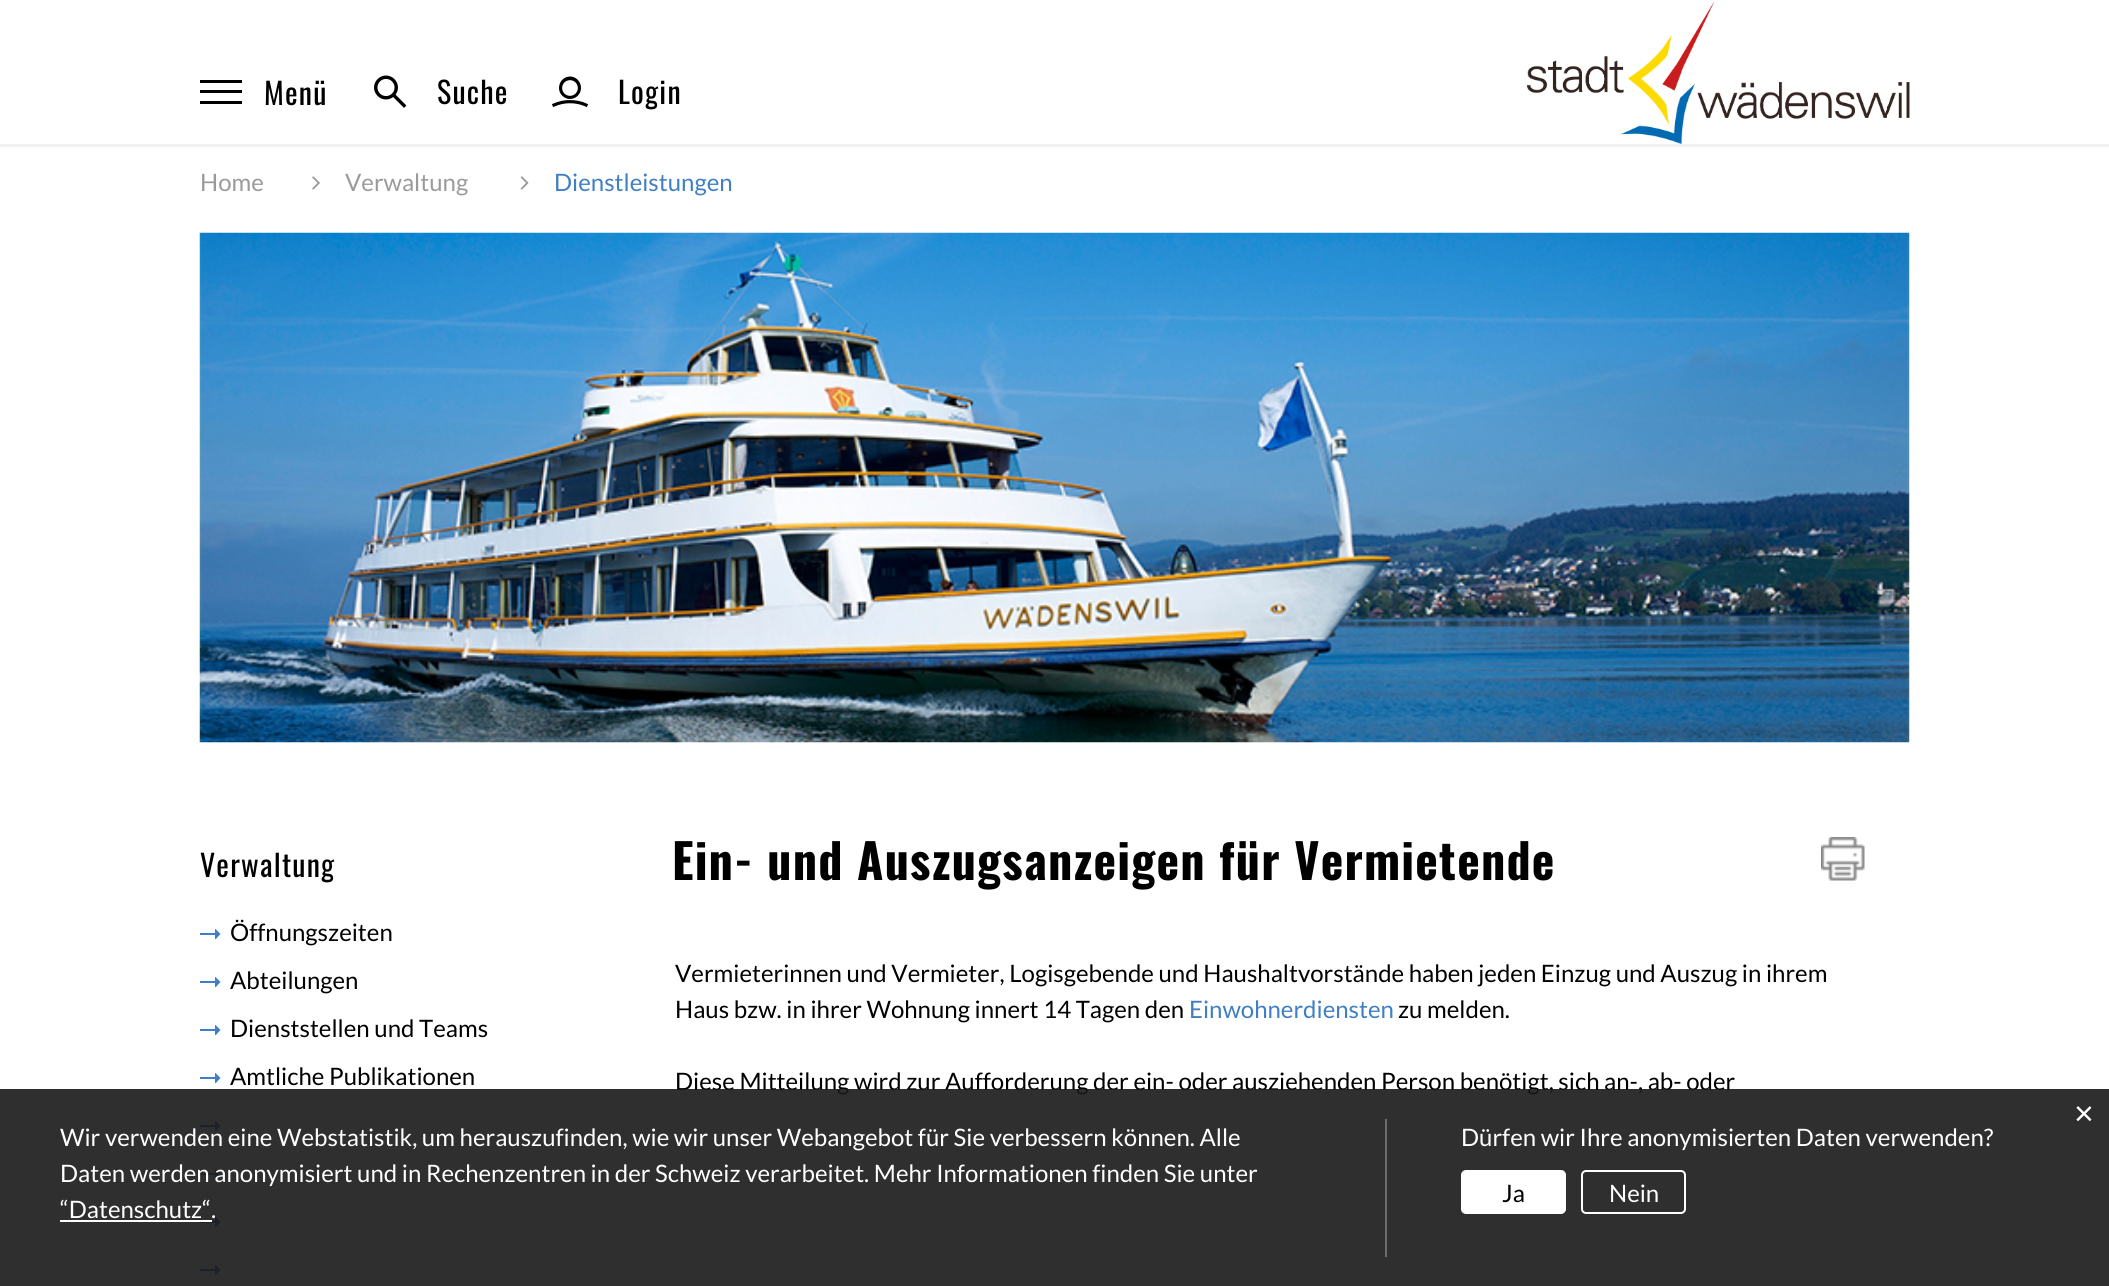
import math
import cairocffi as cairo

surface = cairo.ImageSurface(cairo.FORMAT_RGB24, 2109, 1286)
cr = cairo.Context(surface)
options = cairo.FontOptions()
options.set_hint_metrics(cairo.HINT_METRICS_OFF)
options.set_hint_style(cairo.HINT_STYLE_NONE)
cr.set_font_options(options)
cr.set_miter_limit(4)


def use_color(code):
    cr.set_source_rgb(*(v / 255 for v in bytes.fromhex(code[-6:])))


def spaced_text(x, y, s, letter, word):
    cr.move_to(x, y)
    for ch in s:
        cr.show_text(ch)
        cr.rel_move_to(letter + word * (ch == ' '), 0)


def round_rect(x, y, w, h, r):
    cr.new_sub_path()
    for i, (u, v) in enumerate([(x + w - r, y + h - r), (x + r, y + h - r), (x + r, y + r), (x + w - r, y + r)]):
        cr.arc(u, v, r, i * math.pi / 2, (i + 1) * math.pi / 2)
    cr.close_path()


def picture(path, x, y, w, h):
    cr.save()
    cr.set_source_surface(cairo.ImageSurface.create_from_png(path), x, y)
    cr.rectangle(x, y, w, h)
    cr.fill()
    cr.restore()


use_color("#ffffff")
cr.paint()
use_color("#f1f1f1")
cr.rectangle(0, 144, 2109, 3)
cr.fill()
use_color("#000000")
cr.rectangle(200, 80, 42, 3)
cr.fill()
cr.rectangle(200, 90, 42, 3)
cr.fill()
cr.rectangle(200, 101, 42, 3)
cr.fill()
cr.select_font_face("Oswald")
cr.set_font_size(30)
spaced_text(264, 105, "Menü", 1.2, 0)
cr.save()
cr.new_path()
cr.move_to(386, 75.5)
cr.curve_to(392.5, 75.5, 398, 81, 398, 87.5)
cr.curve_to(398, 94, 392.5, 99.5, 386, 99.5)
cr.curve_to(379.5, 99.5, 374, 94, 374, 87.5)
cr.curve_to(374, 81, 379.5, 75.5, 386, 75.5)
cr.close_path()
cr.clip()
cr.new_path()
cr.move_to(374, 75.5)
cr.line_to(406.5, 75.5)
cr.line_to(406.5, 108)
cr.line_to(374, 108)
cr.close_path()
cr.clip()
cr.arc(386, 87.5, 12, 0, 2 * math.pi)
cr.set_line_width(6.9)
cr.stroke()
cr.restore()
cr.new_path()
cr.move_to(394.5, 96)
cr.line_to(404, 105.5)
cr.set_line_width(3.4)
cr.set_line_cap(cairo.LINE_CAP_SQUARE)
cr.stroke()
spaced_text(437, 104, "Suche", 1.2, 0)
cr.save()
cr.new_path()
cr.move_to(570, 76.5)
cr.curve_to(576, 76.5, 581, 81.5, 581, 88)
cr.curve_to(581, 94, 576, 99, 570, 99)
cr.curve_to(564, 99, 559, 94, 559, 88)
cr.curve_to(559, 81.5, 564, 76.5, 570, 76.5)
cr.close_path()
cr.clip()
cr.new_path()
cr.move_to(551, 76.5)
cr.line_to(589, 76.5)
cr.line_to(589, 108.5)
cr.line_to(551, 108.5)
cr.close_path()
cr.clip()
cr.arc(570, 88, 11, 0, 2 * math.pi)
cr.set_line_width(6.3)
cr.set_line_cap(cairo.LINE_CAP_BUTT)
cr.stroke()
cr.restore()
cr.new_path()
cr.move_to(554, 105)
cr.curve_to(564, 100.5, 576, 100.5, 586, 105)
cr.set_line_width(3.2)
cr.stroke()
spaced_text(618, 104, "Login", 1.2, 0)
picture("img1.png", 1527, 2, 383, 142)
cr.select_font_face("Lato")
cr.set_font_size(24)
use_color("#9a9a9a")
cr.move_to(200, 191)
cr.show_text("Home")
picture("img2.png", 312, 176, 8, 14)
cr.move_to(345, 191)
cr.show_text("Verwaltung")
picture("img3.png", 520, 176, 9, 14)
use_color("#3f7fc3")
cr.move_to(554, 191)
cr.show_text("Dienstleistungen")
picture("img4.png", 199, 232, 1711, 511)
cr.select_font_face("Oswald")
cr.set_font_size(30)
use_color("#000000")
spaced_text(200, 877, "Verwaltung", 1.2, 0)
cr.save()
cr.rectangle(200, 929, 21, 10)
cr.clip()
use_color("#3f7fc3")
cr.new_path()
cr.move_to(215, 940)
cr.line_to(215, 935)
cr.line_to(199.5, 935)
cr.line_to(199.5, 933)
cr.line_to(215, 933)
cr.line_to(215, 928.5)
cr.line_to(220.5, 934)
cr.close_path()
cr.fill()
cr.restore()
cr.select_font_face("Lato")
cr.set_font_size(24)
cr.move_to(230, 941)
cr.show_text("Öffnungszeiten")
cr.save()
cr.rectangle(200, 977, 21, 10)
cr.clip()
use_color("#3f7fc3")
cr.new_path()
cr.move_to(215, 988)
cr.line_to(215, 983)
cr.line_to(199.5, 983)
cr.line_to(199.5, 981)
cr.line_to(215, 981)
cr.line_to(215, 976.5)
cr.line_to(220.5, 982)
cr.close_path()
cr.fill()
cr.restore()
cr.move_to(230, 989)
cr.show_text("Abteilungen")
cr.save()
cr.rectangle(200, 1025, 21, 10)
cr.clip()
use_color("#3f7fc3")
cr.new_path()
cr.move_to(215, 1036)
cr.line_to(215, 1031)
cr.line_to(199.5, 1031)
cr.line_to(199.5, 1029)
cr.line_to(215, 1029)
cr.line_to(215, 1024.5)
cr.line_to(220.5, 1030)
cr.close_path()
cr.fill()
cr.restore()
cr.move_to(230, 1037)
cr.show_text("Dienststellen und Teams")
cr.save()
cr.rectangle(200, 1073, 21, 10)
cr.clip()
use_color("#3f7fc3")
cr.new_path()
cr.move_to(215, 1084)
cr.line_to(215, 1079)
cr.line_to(199.5, 1079)
cr.line_to(199.5, 1077)
cr.line_to(215, 1077)
cr.line_to(215, 1072.5)
cr.line_to(220.5, 1078)
cr.close_path()
cr.fill()
cr.restore()
cr.move_to(230, 1085)
cr.show_text("Amtliche Publikationen")
cr.save()
cr.rectangle(200, 1121, 21, 10)
cr.clip()
use_color("#3f7fc3")
cr.new_path()
cr.move_to(215, 1132)
cr.line_to(215, 1127)
cr.line_to(199.5, 1127)
cr.line_to(199.5, 1125)
cr.line_to(215, 1125)
cr.line_to(215, 1120.5)
cr.line_to(220.5, 1126)
cr.close_path()
cr.fill()
cr.restore()
cr.save()
cr.rectangle(200, 1169, 21, 10)
cr.clip()
use_color("#3f7fc3")
cr.new_path()
cr.move_to(215, 1180)
cr.line_to(215, 1175)
cr.line_to(199.5, 1175)
cr.line_to(199.5, 1173)
cr.line_to(215, 1173)
cr.line_to(215, 1168.5)
cr.line_to(220.5, 1174)
cr.close_path()
cr.fill()
cr.restore()
cr.save()
cr.rectangle(200, 1217, 21, 10)
cr.clip()
use_color("#3f7fc3")
cr.new_path()
cr.move_to(215, 1228)
cr.line_to(215, 1223)
cr.line_to(199.5, 1223)
cr.line_to(199.5, 1221)
cr.line_to(215, 1221)
cr.line_to(215, 1216.5)
cr.line_to(220.5, 1222)
cr.close_path()
cr.fill()
cr.restore()
cr.save()
cr.rectangle(200, 1265, 21, 10)
cr.clip()
use_color("#3f7fc3")
cr.new_path()
cr.move_to(215, 1276)
cr.line_to(215, 1271)
cr.line_to(199.5, 1271)
cr.line_to(199.5, 1269)
cr.line_to(215, 1269)
cr.line_to(215, 1264.5)
cr.line_to(220.5, 1270)
cr.close_path()
cr.fill()
cr.restore()
cr.select_font_face("Oswald", cairo.FONT_SLANT_NORMAL, cairo.FONT_WEIGHT_BOLD)
cr.set_font_size(48)
spaced_text(672, 880, "Ein- und Auszugsanzeigen für Vermietende", 1.2, 0)
picture("img5.png", 1821, 837, 44, 44)
cr.select_font_face("Lato")
cr.set_font_size(24)
cr.move_to(675, 982)
cr.show_text("Vermieterinnen und Vermieter, Logisgebende und Haushaltvorstände haben jeden Einzug und Auszug in ihrem")
cr.move_to(675, 1018)
cr.show_text("Haus bzw. in ihrer Wohnung innert 14 Tagen den")
use_color("#3f7fc3")
cr.move_to(1189, 1018)
cr.show_text("Einwohnerdiensten")
use_color("#000000")
cr.move_to(1398, 1018)
cr.show_text("zu melden.")
cr.move_to(675, 1090)
cr.show_text("Diese Mitteilung wird zur Aufforderung der ein- oder ausziehenden Person benötigt, sich an-, ab- oder")
cr.set_source_rgba(0.098, 0.098, 0.098, 0.9)
cr.rectangle(0, 1089, 2109, 197)
cr.fill()
cr.select_font_face("Liberation Sans")
cr.set_font_size(34)
use_color("#ffffff")
cr.move_to(2074, 1125)
cr.show_text("×")
use_color("#6d6d6d")
cr.rectangle(1385, 1119, 2, 138)
cr.fill()
cr.select_font_face("Lato")
cr.set_font_size(24)
use_color("#ffffff")
cr.move_to(60, 1146)
cr.show_text("Wir verwenden eine Webstatistik, um herauszufinden, wie wir unser Webangebot für Sie verbessern können. Alle")
cr.move_to(60, 1182)
cr.show_text("Daten werden anonymisiert und in Rechenzentren in der Schweiz verarbeitet. Mehr Informationen finden Sie unter")
cr.move_to(60, 1218)
cr.show_text("“Datenschutz“.")
cr.rectangle(60, 1220, 152, 2)
cr.fill()
cr.move_to(1461, 1146)
cr.show_text("Dürfen wir Ihre anonymisierten Daten verwenden?")
round_rect(1462, 1171, 103, 42, 4)
cr.fill_preserve()
cr.set_line_width(2)
cr.set_line_cap(cairo.LINE_CAP_BUTT)
cr.stroke()
use_color("#000000")
cr.move_to(1502, 1202)
cr.show_text("Ja")
round_rect(1582, 1171, 103, 42, 4)
use_color("#ffffff")
cr.stroke()
cr.move_to(1609, 1202)
cr.show_text("Nein")
surface.write_to_png("result.png")
